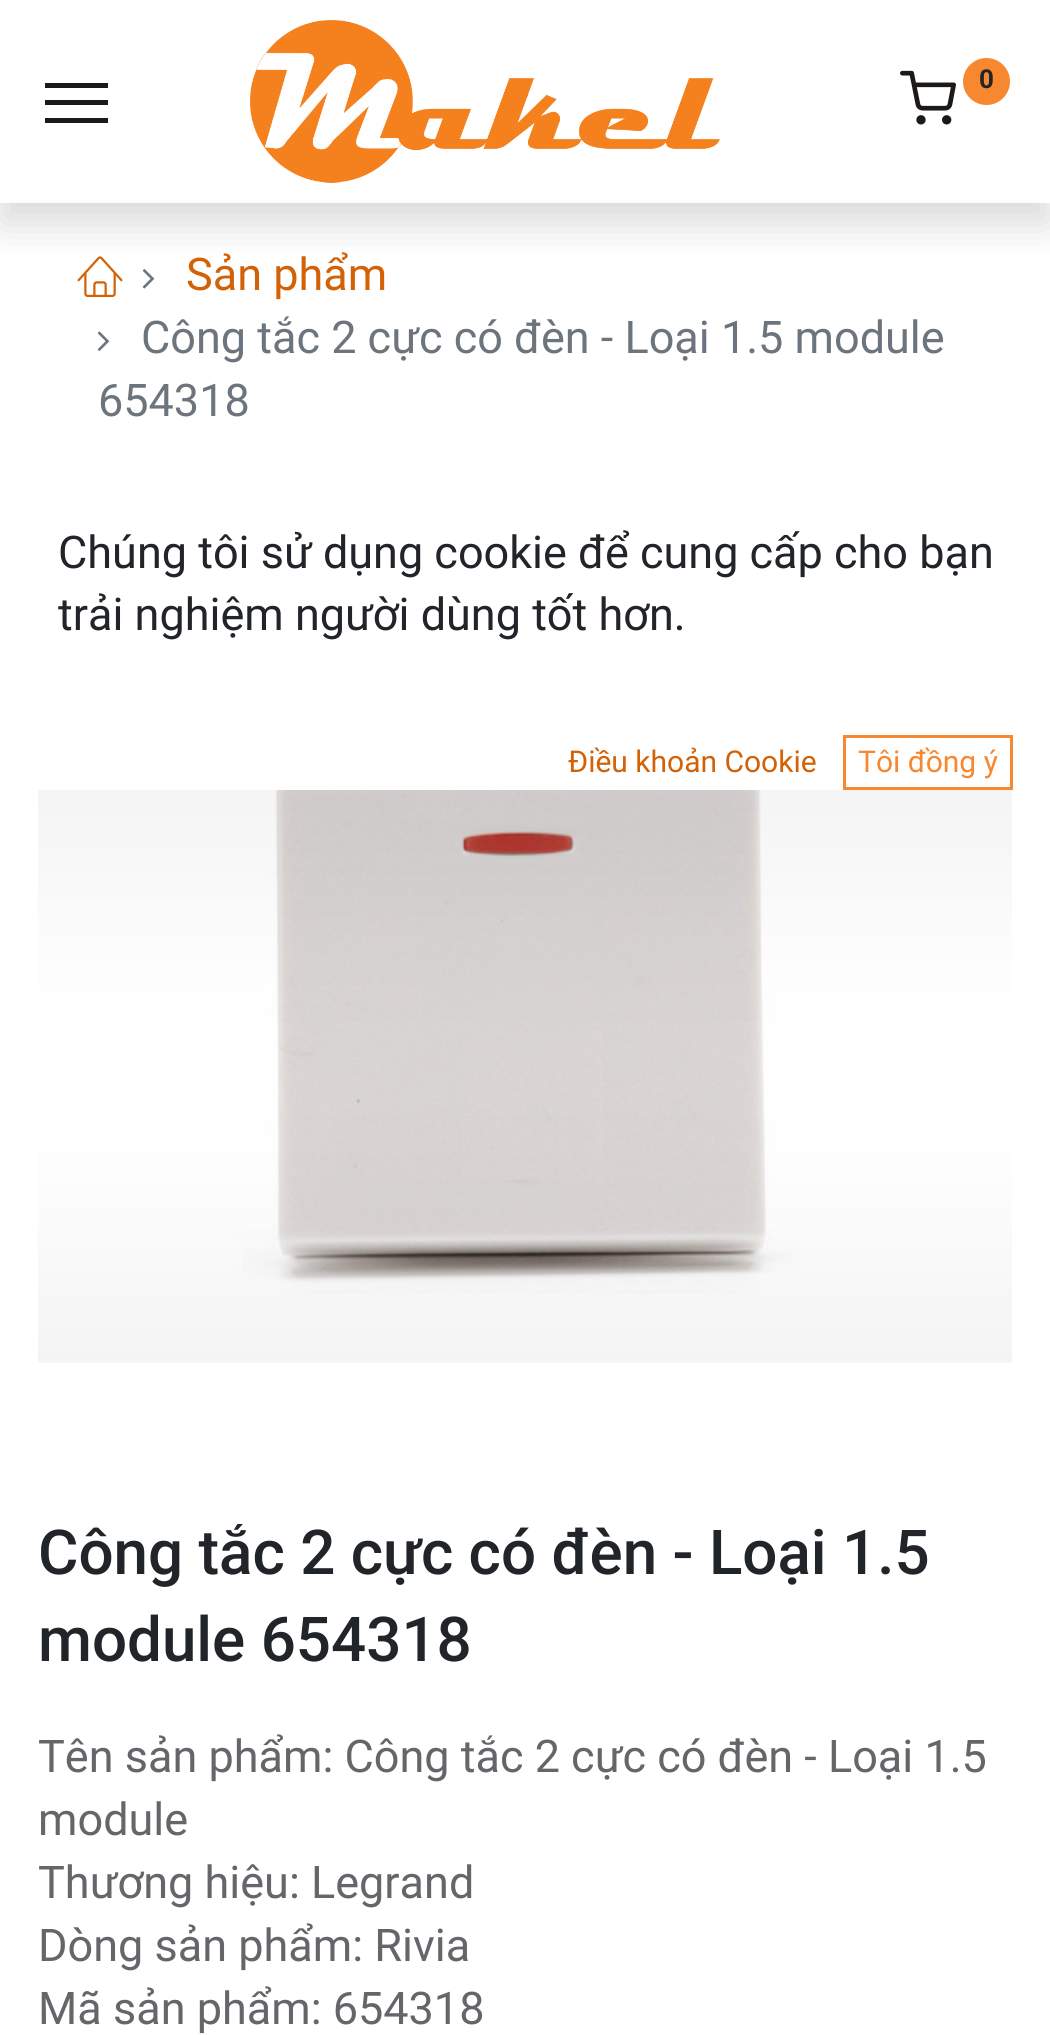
import math
import cairocffi as cairo

surface = cairo.ImageSurface(cairo.FORMAT_RGB24, 1050, 2035)
cr = cairo.Context(surface)
options = cairo.FontOptions()
options.set_hint_metrics(cairo.HINT_METRICS_OFF)
options.set_hint_style(cairo.HINT_STYLE_NONE)
cr.set_font_options(options)
cr.set_miter_limit(4)


def use_color(code):
    cr.set_source_rgb(*(v / 255 for v in bytes.fromhex(code[-6:])))


def round_rect(x, y, w, h, r):
    cr.new_sub_path()
    for i, (u, v) in enumerate([(x + w - r, y + h - r), (x + r, y + h - r), (x + r, y + r), (x + w - r, y + r)]):
        cr.arc(u, v, r, i * math.pi / 2, (i + 1) * math.pi / 2)
    cr.close_path()


def shadow(x, y, w, h, r, blur, alpha):
    cr.push_group_with_content(cairo.CONTENT_ALPHA)
    cr.set_operator(cairo.OPERATOR_SOURCE)
    for i in range(15, -16, -2):
        e = blur * i / 6
        if min(w, h) + 2 * e > 0:
            cr.set_source_rgba(0, 0, 0, alpha * math.erfc((i - 1) / 8.5) / 2)
            round_rect(x - e, y - e, w + 2 * e, h + 2 * e, max(0, min(r + e + blur * .6, min(w, h) / 2 + e)))
            cr.fill()
    cr.mask(cr.pop_group())


def picture(path, x, y, w, h):
    cr.save()
    cr.set_source_surface(cairo.ImageSurface.create_from_png(path), x, y)
    cr.rectangle(x, y, w, h)
    cr.fill()
    cr.restore()


use_color("#ffffff")
cr.paint()
picture("img3.png", 77, 256, 46, 41)
picture("img4.png", 142, 269, 13, 20)
use_color("#000000")
shadow(0, 20, 1050, 203, 0, 20, 0.15)
use_color("#ffffff")
cr.rectangle(0, 0, 1050, 203)
cr.fill()
picture("img1.png", 250, 20, 470, 163)
picture("img2.png", 900, 70, 56, 55)
use_color("#f8882f")
cr.arc(986.5, 81.5, 23.5, 0, 2 * math.pi)
cr.fill()
cr.select_font_face("Roboto", cairo.FONT_SLANT_NORMAL, cairo.FONT_WEIGHT_BOLD)
cr.set_font_size(26)
use_color("#212529")
cr.move_to(979, 88)
cr.show_text("0")
use_color("#1d1916")
cr.rectangle(45, 83, 63, 5)
cr.fill()
cr.rectangle(45, 100, 63, 5)
cr.fill()
cr.rectangle(45, 118, 63, 5)
cr.fill()
cr.select_font_face("Roboto")
cr.set_font_size(45)
use_color("#d36207")
cr.move_to(186, 290)
cr.show_text("Sản phẩm")
picture("img5.png", 97, 331, 13, 20)
use_color("#6c757d")
cr.move_to(141, 353)
cr.show_text("Công tắc 2 cực có đèn - Loại 1.5 module")
cr.move_to(98, 416)
cr.show_text("654318")
picture("img6.png", 38, 790, 974, 573)
cr.select_font_face("Roboto Medium")
cr.set_font_size(61.9)
use_color("#212529")
cr.move_to(38, 1574)
cr.show_text("Công tắc 2 cực có đèn - Loại 1.5")
cr.move_to(38, 1661)
cr.show_text("module 654318")
cr.select_font_face("Roboto")
cr.set_font_size(45)
use_color("#646669")
cr.move_to(38, 1772)
cr.show_text("Tên sản phẩm: Công tắc 2 cực có đèn - Loại 1.5")
cr.move_to(38, 1835)
cr.show_text("module")
cr.move_to(38, 1898)
cr.show_text("Thương hiệu: Legrand")
cr.move_to(38, 1961)
cr.show_text("Dòng sản phẩm: Rivia")
cr.move_to(38, 2024)
cr.show_text("Mã sản phẩm: 654318")
use_color("#212529")
cr.move_to(58, 568)
cr.show_text("Chúng tôi sử dụng cookie để cung cấp cho bạn")
cr.move_to(58, 630)
cr.show_text("trải nghiệm người dùng tốt hơn.")
cr.set_font_size(30)
use_color("#d36207")
cr.move_to(568, 772)
cr.show_text("Điều khoản Cookie")
cr.rectangle(844.5, 736.5, 167, 52)
use_color("#f8882f")
cr.set_line_width(3)
cr.stroke()
cr.move_to(858, 772)
cr.show_text("Tôi đồng ý")
surface.write_to_png("result.png")
